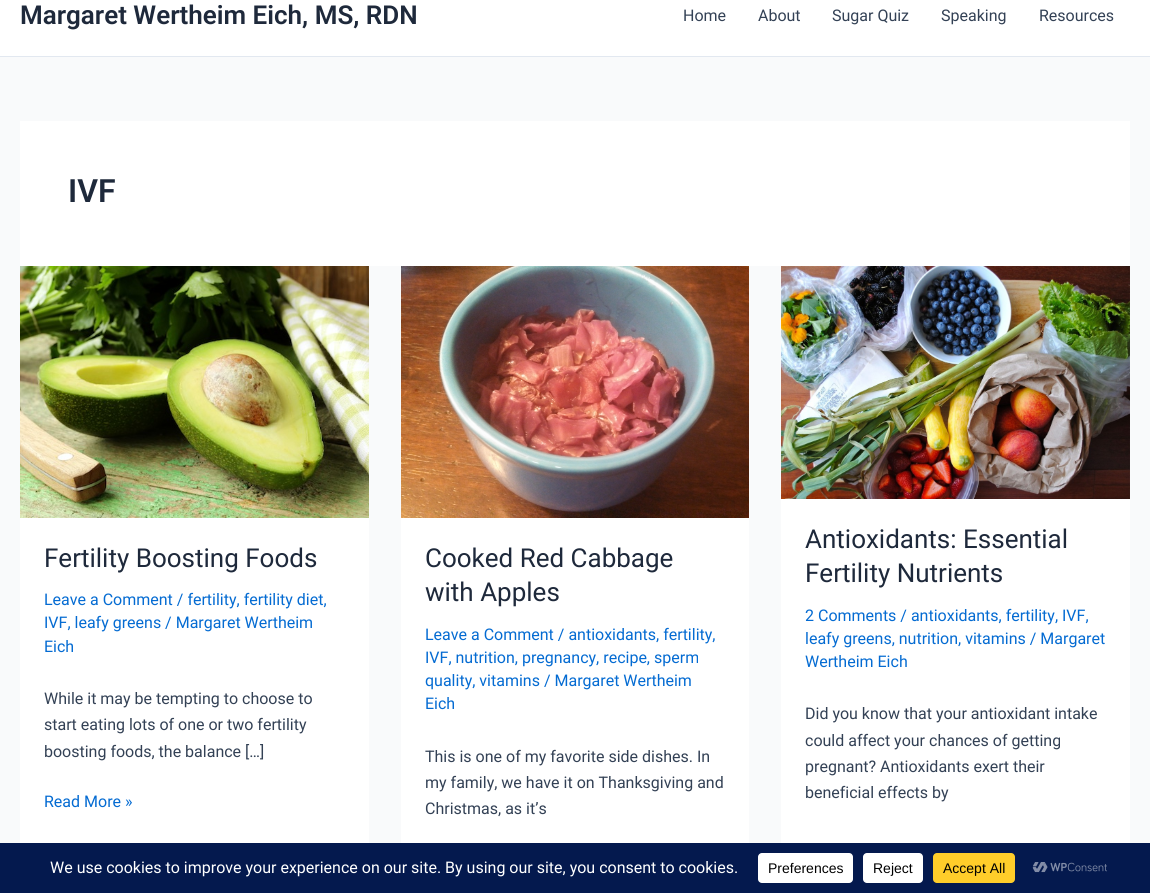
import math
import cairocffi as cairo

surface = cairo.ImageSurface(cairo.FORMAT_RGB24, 1150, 893)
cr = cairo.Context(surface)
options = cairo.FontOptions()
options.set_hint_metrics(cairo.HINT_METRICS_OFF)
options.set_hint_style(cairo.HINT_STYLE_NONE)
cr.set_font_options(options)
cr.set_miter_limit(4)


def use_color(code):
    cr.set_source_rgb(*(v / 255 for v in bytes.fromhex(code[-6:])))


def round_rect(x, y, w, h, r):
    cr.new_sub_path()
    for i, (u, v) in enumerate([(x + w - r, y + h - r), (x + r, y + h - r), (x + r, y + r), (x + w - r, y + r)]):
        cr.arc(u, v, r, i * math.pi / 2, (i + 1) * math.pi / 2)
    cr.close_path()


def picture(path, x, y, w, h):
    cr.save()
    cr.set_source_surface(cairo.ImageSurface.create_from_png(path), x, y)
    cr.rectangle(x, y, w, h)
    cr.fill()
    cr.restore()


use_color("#f9fafb")
cr.paint()
use_color("#ffffff")
cr.rectangle(0, 0, 1150, 56)
cr.fill()
use_color("#e2e8f0")
cr.rectangle(0, 56, 1150, 1)
cr.fill()
cr.select_font_face("Roboto SemiBold")
cr.set_font_size(26)
use_color("#1e293b")
cr.move_to(20, 24)
cr.show_text("Margaret Wertheim Eich, MS, RDN")
cr.select_font_face("Roboto")
cr.set_font_size(16)
use_color("#334155")
cr.move_to(683, 21)
cr.show_text("Home")
cr.move_to(758, 21)
cr.show_text("About")
cr.move_to(832, 21)
cr.show_text("Sugar Quiz")
cr.move_to(941, 21)
cr.show_text("Speaking")
cr.move_to(1039, 21)
cr.show_text("Resources")
use_color("#ffffff")
cr.rectangle(20, 121, 1110, 145)
cr.fill()
cr.select_font_face("Roboto SemiBold")
cr.set_font_size(32)
use_color("#1e293b")
cr.move_to(68, 202)
cr.show_text("IVF")
use_color("#ffffff")
cr.rectangle(20, 518, 349, 325)
cr.fill()
picture("img1.png", 20, 266, 349, 252)
cr.select_font_face("Roboto")
cr.set_font_size(26)
use_color("#1e293b")
cr.move_to(44, 567)
cr.show_text("Fertility Boosting Foods")
cr.set_font_size(16)
use_color("#046bd2")
cr.move_to(44, 605)
cr.show_text("Leave a Comment / fertility, fertility diet,")
cr.move_to(44, 628)
cr.show_text("IVF, leafy greens / Margaret Wertheim")
cr.move_to(44, 652)
cr.show_text("Eich")
use_color("#334155")
cr.move_to(44, 704)
cr.show_text("While it may be tempting to choose to")
cr.move_to(44, 730)
cr.show_text("start eating lots of one or two fertility")
cr.move_to(44, 757)
cr.show_text("boosting foods, the balance […]")
use_color("#046bd2")
cr.move_to(44, 807)
cr.show_text("Read More »")
use_color("#ffffff")
cr.rectangle(401, 518, 348, 325)
cr.fill()
picture("img2.png", 401, 266, 348, 252)
cr.set_font_size(26)
use_color("#1e293b")
cr.move_to(425, 567)
cr.show_text("Cooked Red Cabbage")
cr.move_to(425, 601)
cr.show_text("with Apples")
cr.set_font_size(16)
use_color("#046bd2")
cr.move_to(425, 640)
cr.show_text("Leave a Comment / antioxidants, fertility,")
cr.move_to(425, 663)
cr.show_text("IVF, nutrition, pregnancy, recipe, sperm")
cr.move_to(425, 686)
cr.show_text("quality, vitamins / Margaret Wertheim")
cr.move_to(425, 709)
cr.show_text("Eich")
use_color("#334155")
cr.move_to(425, 762)
cr.show_text("This is one of my favorite side dishes. In")
cr.move_to(425, 788)
cr.show_text("my family, we have it on Thanksgiving and")
cr.move_to(425, 814)
cr.show_text("Christmas, as it’s")
use_color("#ffffff")
cr.rectangle(781, 499, 349, 344)
cr.fill()
picture("img3.png", 781, 266, 349, 233)
cr.set_font_size(26)
use_color("#1e293b")
cr.move_to(805, 548)
cr.show_text("Antioxidants: Essential")
cr.move_to(805, 582)
cr.show_text("Fertility Nutrients")
cr.set_font_size(16)
use_color("#046bd2")
cr.move_to(805, 621)
cr.show_text("2 Comments / antioxidants, fertility, IVF,")
cr.move_to(805, 644)
cr.show_text("leafy greens, nutrition, vitamins / Margaret")
cr.move_to(805, 667)
cr.show_text("Wertheim Eich")
use_color("#334155")
cr.move_to(805, 719)
cr.show_text("Did you know that your antioxidant intake")
cr.move_to(805, 746)
cr.show_text("could affect your chances of getting")
cr.move_to(805, 772)
cr.show_text("pregnant? Antioxidants exert their")
cr.move_to(805, 798)
cr.show_text("beneficial effects by")
use_color("#04194e")
cr.rectangle(0, 843, 1150, 50)
cr.fill()
use_color("#ffffff")
cr.move_to(50, 873)
cr.show_text("We use cookies to improve your experience on our site. By using our site, you consent to cookies.")
round_rect(758, 853, 95, 30, 4)
cr.fill()
cr.select_font_face("Liberation Sans")
cr.set_font_size(14)
use_color("#000000")
cr.move_to(768, 873)
cr.show_text("Preferences")
use_color("#ffffff")
round_rect(863, 853, 60, 30, 4)
cr.fill()
use_color("#000000")
cr.move_to(873, 873)
cr.show_text("Reject")
use_color("#ffcd2a")
round_rect(933, 853, 82, 30, 4)
cr.fill()
use_color("#000000")
cr.move_to(943, 873)
cr.show_text("Accept All")
picture("img4.png", 1032, 862, 75, 11)
surface.write_to_png("result.png")
